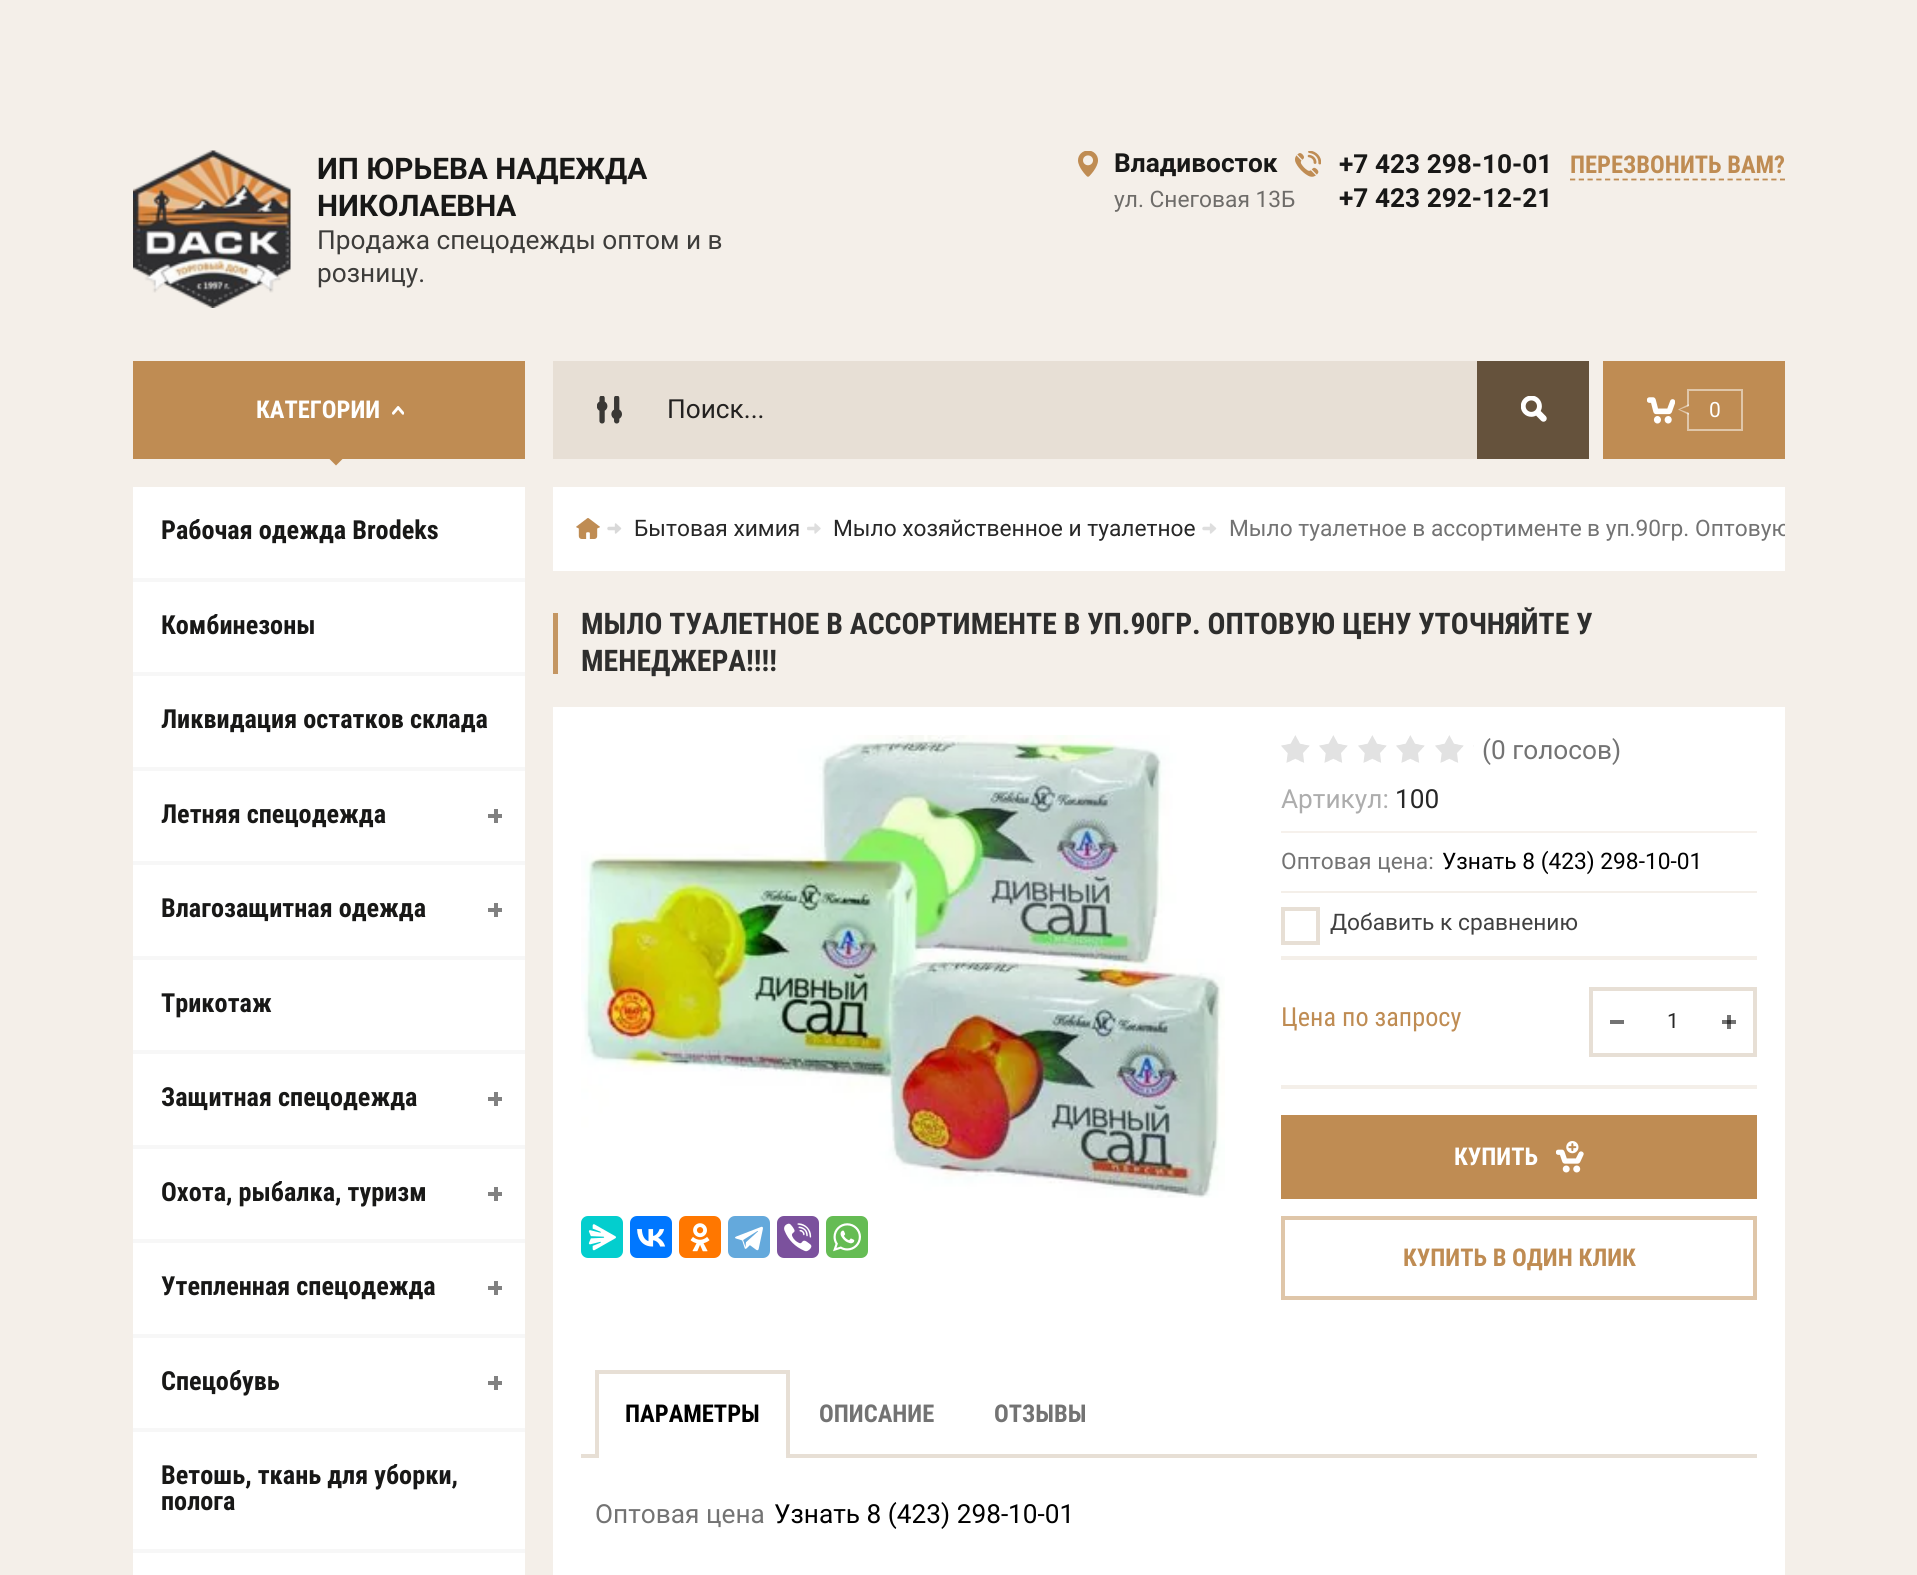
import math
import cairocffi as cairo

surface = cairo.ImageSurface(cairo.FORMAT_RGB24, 1917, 1575)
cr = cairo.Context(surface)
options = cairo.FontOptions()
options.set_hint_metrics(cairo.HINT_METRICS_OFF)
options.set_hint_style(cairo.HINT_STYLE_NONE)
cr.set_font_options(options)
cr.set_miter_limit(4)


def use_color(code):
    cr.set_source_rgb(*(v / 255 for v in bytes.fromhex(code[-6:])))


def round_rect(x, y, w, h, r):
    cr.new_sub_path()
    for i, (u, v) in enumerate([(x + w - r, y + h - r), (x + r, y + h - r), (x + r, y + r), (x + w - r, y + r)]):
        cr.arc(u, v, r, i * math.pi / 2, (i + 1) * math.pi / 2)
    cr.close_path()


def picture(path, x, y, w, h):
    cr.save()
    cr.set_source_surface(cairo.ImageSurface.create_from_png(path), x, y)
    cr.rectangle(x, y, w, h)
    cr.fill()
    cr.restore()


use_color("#f4efe9")
cr.paint()
picture("img1.png", 133, 150, 158, 158)
cr.select_font_face("Roboto", cairo.FONT_SLANT_NORMAL, cairo.FONT_WEIGHT_BOLD)
cr.set_font_size(29.75)
use_color("#181817")
cr.move_to(317, 179)
cr.show_text("ИП ЮРЬЕВА НАДЕЖДА")
cr.move_to(317, 216)
cr.show_text("НИКОЛАЕВНА")
cr.select_font_face("Roboto")
cr.set_font_size(26.25)
use_color("#3d3c3a")
cr.move_to(317, 249)
cr.show_text("Продажа спецодежды оптом и в")
cr.move_to(317, 282)
cr.show_text("розницу.")
picture("img2.png", 1078, 151, 20, 26)
cr.select_font_face("Roboto", cairo.FONT_SLANT_NORMAL, cairo.FONT_WEIGHT_BOLD)
use_color("#181817")
cr.move_to(1114, 172)
cr.show_text("Владивосток")
cr.select_font_face("Roboto")
cr.set_font_size(22.75)
use_color("#6e6c69")
cr.move_to(1114, 207)
cr.show_text("ул. Снеговая 13Б")
picture("img3.png", 1295, 151, 26, 26)
cr.select_font_face("Roboto", cairo.FONT_SLANT_NORMAL, cairo.FONT_WEIGHT_BOLD)
cr.set_font_size(26.25)
use_color("#181817")
cr.move_to(1339, 173)
cr.show_text("+7 423 298-10-01")
cr.move_to(1339, 207)
cr.show_text("+7 423 292-12-21")
cr.select_font_face("Roboto Condensed", cairo.FONT_SLANT_NORMAL, cairo.FONT_WEIGHT_BOLD)
cr.set_font_size(24.5)
use_color("#bf8c53")
cr.move_to(1570, 173)
cr.show_text("ПЕРЕЗВОНИТЬ ВАМ?")
cr.new_path()
cr.move_to(1570, 179.5)
cr.line_to(1785, 179.5)
cr.set_line_width(1.8)
cr.set_dash([5.25, 3.5])
cr.stroke()
cr.rectangle(133, 361, 392, 98)
cr.fill()
use_color("#ffffff")
cr.move_to(256, 418)
cr.show_text("КАТЕГОРИИ")
picture("img4.png", 392, 406, 12, 9)
use_color("#bf8c53")
cr.new_path()
cr.move_to(329, 458.5)
cr.line_to(343, 458.5)
cr.line_to(336, 465.5)
cr.close_path()
cr.fill()
use_color("#e7dfd5")
cr.rectangle(553, 361, 924, 98)
cr.fill()
picture("img5.png", 597, 396, 25, 28)
cr.select_font_face("Roboto")
cr.set_font_size(26.25)
use_color("#232120")
cr.move_to(667, 418)
cr.show_text("Поиск...")
use_color("#65523c")
cr.rectangle(1477, 361, 112, 98)
cr.fill()
picture("img6.png", 1521, 396, 26, 26)
use_color("#bf8c53")
cr.rectangle(1603, 361, 182, 98)
cr.fill()
picture("img7.png", 1647, 397, 28, 27)
cr.rectangle(1688, 390, 54, 40)
use_color("#dfc6a9")
cr.set_line_width(2)
cr.set_dash([])
cr.stroke()
cr.set_source_rgba(1, 1, 1, 0.5)
cr.new_path()
cr.move_to(1689, 404)
cr.line_to(1689, 415)
cr.line_to(1678, 409.5)
cr.close_path()
cr.fill()
cr.set_font_size(21)
use_color("#ffffff")
cr.move_to(1709, 417)
cr.show_text("0")
use_color("#bf8c53")
cr.new_path()
cr.move_to(1689, 406)
cr.line_to(1689, 413)
cr.line_to(1680, 409.5)
cr.close_path()
cr.fill()
use_color("#ffffff")
cr.rectangle(133, 487, 392, 1088)
cr.fill()
use_color("#f7f7f7")
cr.rectangle(133, 578, 392, 4)
cr.fill()
cr.select_font_face("Roboto Condensed", cairo.FONT_SLANT_NORMAL, cairo.FONT_WEIGHT_BOLD)
cr.set_font_size(26.25)
use_color("#181817")
cr.move_to(161, 539)
cr.show_text("Рабочая одежда Brodeks")
use_color("#f7f7f7")
cr.rectangle(133, 672, 392, 4)
cr.fill()
use_color("#181817")
cr.move_to(161, 634)
cr.show_text("Комбинезоны")
use_color("#f7f7f7")
cr.rectangle(133, 767, 392, 4)
cr.fill()
use_color("#181817")
cr.move_to(161, 728)
cr.show_text("Ликвидация остатков склада")
use_color("#f7f7f7")
cr.rectangle(133, 861, 392, 4)
cr.fill()
use_color("#181817")
cr.move_to(161, 823)
cr.show_text("Летняя спецодежда")
use_color("#818181")
cr.rectangle(494, 809, 4, 14)
cr.fill()
cr.rectangle(488, 814, 14, 4)
cr.fill()
use_color("#f7f7f7")
cr.rectangle(133, 956, 392, 4)
cr.fill()
use_color("#181817")
cr.move_to(161, 917)
cr.show_text("Влагозащитная одежда")
use_color("#818181")
cr.rectangle(494, 903, 4, 14)
cr.fill()
cr.rectangle(488, 908, 14, 4)
cr.fill()
use_color("#f7f7f7")
cr.rectangle(133, 1050, 392, 4)
cr.fill()
use_color("#181817")
cr.move_to(161, 1012)
cr.show_text("Трикотаж")
use_color("#f7f7f7")
cr.rectangle(133, 1145, 392, 4)
cr.fill()
use_color("#181817")
cr.move_to(161, 1106)
cr.show_text("Защитная спецодежда")
use_color("#818181")
cr.rectangle(494, 1092, 4, 14)
cr.fill()
cr.rectangle(488, 1097, 14, 4)
cr.fill()
use_color("#f7f7f7")
cr.rectangle(133, 1239, 392, 4)
cr.fill()
use_color("#181817")
cr.move_to(161, 1201)
cr.show_text("Охота, рыбалка, туризм")
use_color("#818181")
cr.rectangle(494, 1187, 4, 14)
cr.fill()
cr.rectangle(488, 1192, 14, 4)
cr.fill()
use_color("#f7f7f7")
cr.rectangle(133, 1334, 392, 4)
cr.fill()
use_color("#181817")
cr.move_to(161, 1295)
cr.show_text("Утепленная спецодежда")
use_color("#818181")
cr.rectangle(494, 1281, 4, 14)
cr.fill()
cr.rectangle(488, 1286, 14, 4)
cr.fill()
use_color("#f7f7f7")
cr.rectangle(133, 1428, 392, 4)
cr.fill()
use_color("#181817")
cr.move_to(161, 1390)
cr.show_text("Спецобувь")
use_color("#818181")
cr.rectangle(494, 1376, 4, 14)
cr.fill()
cr.rectangle(488, 1381, 14, 4)
cr.fill()
use_color("#f7f7f7")
cr.rectangle(133, 1549, 392, 4)
cr.fill()
use_color("#181817")
cr.move_to(161, 1484)
cr.show_text("Ветошь, ткань для уборки,")
cr.move_to(161, 1510)
cr.show_text("полога")
use_color("#ffffff")
cr.rectangle(553, 487, 1232, 84)
cr.fill()
picture("img8.png", 576, 518, 24, 21)
picture("img9.png", 607, 523, 15, 11)
cr.select_font_face("Roboto")
cr.set_font_size(22.75)
use_color("#272727")
cr.move_to(634, 536)
cr.show_text("Бытовая химия")
picture("img10.png", 807, 523, 14, 11)
cr.move_to(833, 536)
cr.show_text("Мыло хозяйственное и туалетное")
picture("img11.png", 1202, 523, 15, 11)
use_color("#737373")
cr.move_to(1229, 536)
cr.show_text("Мыло туалетное в ассортименте")
cr.save()
cr.rectangle(553, 487, 1232, 84)
cr.clip()
cr.move_to(1587, 536)
cr.show_text("в уп.90гр. Оптовую")
cr.restore()
use_color("#c49662")
cr.rectangle(553, 613, 5, 61)
cr.fill()
cr.select_font_face("Roboto Condensed", cairo.FONT_SLANT_NORMAL, cairo.FONT_WEIGHT_BOLD)
cr.set_font_size(29.75)
use_color("#2e2e2d")
cr.move_to(581, 634)
cr.show_text("МЫЛО ТУАЛЕТНОЕ В АССОРТИМЕНТЕ В УП.90ГР. ОПТОВУЮ ЦЕНУ УТОЧНЯЙТЕ У")
cr.move_to(581, 671)
cr.show_text("МЕНЕДЖЕРА!!!!")
use_color("#ffffff")
cr.rectangle(553, 707, 1232, 868)
cr.fill()
use_color("#737373")
cr.rectangle(1727, 1015, 4, 14)
cr.fill()
picture("img12.png", 581, 735, 644, 463)
use_color("#03cece")
round_rect(581, 1216, 42, 42, 7)
cr.fill()
picture("img13.png", 588, 1224, 28, 27)
use_color("#0077ff")
round_rect(630, 1216, 42, 42, 7)
cr.fill()
picture("img14.png", 637, 1229, 29, 18)
use_color("#ff7700")
round_rect(679, 1216, 42, 42, 7)
cr.fill()
picture("img15.png", 690, 1223, 20, 29)
use_color("#64a9dc")
round_rect(728, 1216, 42, 42, 7)
cr.fill()
picture("img16.png", 735, 1226, 28, 25)
use_color("#7b519d")
round_rect(777, 1216, 42, 42, 7)
cr.fill()
picture("img17.png", 784, 1223, 28, 29)
use_color("#65bc54")
round_rect(826, 1216, 42, 42, 7)
cr.fill()
picture("img18.png", 833, 1223, 28, 29)
picture("img19.png", 1281, 735, 193, 28)
cr.select_font_face("Roboto")
cr.set_font_size(26.25)
use_color("#737373")
cr.move_to(1482, 759)
cr.show_text("(0 голосов)")
use_color("#f6f1ec")
cr.rectangle(1281, 831, 476, 2)
cr.fill()
use_color("#adadad")
cr.move_to(1281, 808)
cr.show_text("Артикул:")
use_color("#272727")
cr.move_to(1395, 808)
cr.show_text("100")
cr.set_font_size(22.75)
use_color("#737373")
cr.move_to(1281, 869)
cr.show_text("Оптовая цена:")
use_color("#000000")
cr.move_to(1442, 869)
cr.show_text("Узнать 8 (423) 298-10-01")
use_color("#f4efe9")
cr.rectangle(1281, 891, 476, 2)
cr.fill()
cr.rectangle(1283, 909, 35, 34)
use_color("#e7dfd5")
cr.set_line_width(4)
cr.stroke()
use_color("#404040")
cr.move_to(1330, 930)
cr.show_text("Добавить к сравнению")
use_color("#f4efe9")
cr.rectangle(1281, 956, 476, 4)
cr.fill()
cr.rectangle(1281, 1085, 476, 4)
cr.fill()
cr.select_font_face("Roboto Condensed")
cr.set_font_size(26.25)
use_color("#bf8c53")
cr.move_to(1281, 1026)
cr.show_text("Цена по запросу")
cr.rectangle(1591, 989, 164, 66)
use_color("#e7dfd5")
cr.stroke()
use_color("#737373")
cr.rectangle(1610, 1020, 14, 4)
cr.fill()
cr.select_font_face("Roboto")
cr.set_font_size(21)
use_color("#272727")
cr.move_to(1667, 1028)
cr.show_text("1")
use_color("#737373")
cr.rectangle(1722, 1020, 14, 4)
cr.fill()
use_color("#343434")
cr.rectangle(1727, 1020, 4, 4)
cr.fill()
use_color("#bf8c53")
cr.rectangle(1281, 1115, 476, 84)
cr.fill()
picture("img20.png", 1556, 1141, 28, 32)
cr.select_font_face("Roboto Condensed", cairo.FONT_SLANT_NORMAL, cairo.FONT_WEIGHT_BOLD)
cr.set_font_size(24.5)
use_color("#ffffff")
cr.move_to(1454, 1165)
cr.show_text("КУПИТЬ")
cr.rectangle(1283, 1218, 472, 80)
use_color("#dfc6a9")
cr.stroke()
use_color("#bf8c53")
cr.move_to(1403, 1266)
cr.show_text("КУПИТЬ В ОДИН КЛИК")
use_color("#e7dfd5")
cr.rectangle(581, 1454, 1176, 4)
cr.fill()
cr.rectangle(595, 1370, 194, 4)
cr.fill()
cr.rectangle(786, 1370, 4, 84)
cr.fill()
cr.rectangle(595, 1370, 4, 84)
cr.fill()
use_color("#000000")
cr.move_to(625, 1422)
cr.show_text("ПАРАМЕТРЫ")
use_color("#ffffff")
cr.rectangle(599, 1454, 187, 4)
cr.fill()
use_color("#737373")
cr.move_to(819, 1422)
cr.show_text("ОПИСАНИЕ")
cr.move_to(994, 1422)
cr.show_text("ОТЗЫВЫ")
cr.select_font_face("Roboto")
cr.set_font_size(26.25)
cr.move_to(595, 1523)
cr.show_text("Оптовая цена")
use_color("#000000")
cr.move_to(774, 1523)
cr.show_text("Узнать 8 (423) 298-10-01")
surface.write_to_png("result.png")
